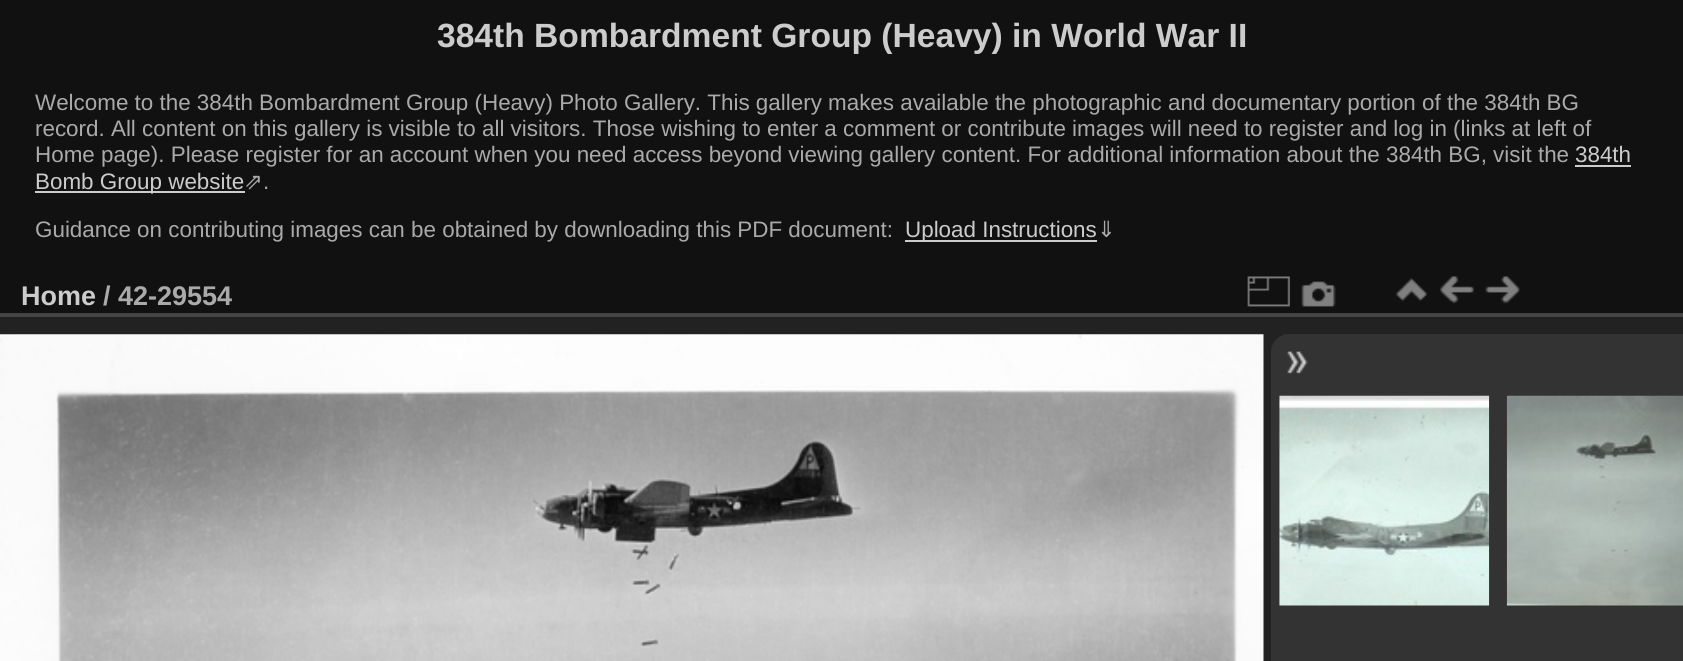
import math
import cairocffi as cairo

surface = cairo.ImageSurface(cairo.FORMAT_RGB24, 1683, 661)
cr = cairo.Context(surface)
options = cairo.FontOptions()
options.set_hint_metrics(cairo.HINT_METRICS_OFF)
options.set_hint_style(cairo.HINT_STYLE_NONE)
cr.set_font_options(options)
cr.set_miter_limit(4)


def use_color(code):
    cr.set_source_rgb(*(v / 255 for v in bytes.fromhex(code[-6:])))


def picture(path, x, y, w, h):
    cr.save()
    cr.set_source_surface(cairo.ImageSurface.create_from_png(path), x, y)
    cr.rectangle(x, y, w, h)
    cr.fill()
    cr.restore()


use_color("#111111")
cr.paint()
cr.select_font_face("Liberation Sans", cairo.FONT_SLANT_NORMAL, cairo.FONT_WEIGHT_BOLD)
cr.set_font_size(33.6)
use_color("#cccccc")
cr.move_to(437, 47)
cr.show_text("384th Bombardment Group (Heavy) in World War II")
cr.select_font_face("Liberation Sans")
cr.set_font_size(22.4)
use_color("#aaaaaa")
cr.move_to(35, 110)
cr.show_text("Welcome to the 384th Bombardment Group (Heavy) Photo Gallery. This gallery makes available the photographic and documentary portion of the 384th BG")
cr.move_to(35, 136)
cr.show_text("record. All content on this gallery is visible to all visitors. Those wishing to enter a comment or contribute images will need to register and log in (links at left of")
cr.move_to(35, 162)
cr.show_text("Home page). Please register for an account when you need access beyond viewing gallery content. For additional information about the 384th BG, visit the")
use_color("#cccccc")
cr.move_to(1575, 162)
cr.show_text("384th")
cr.rectangle(1575, 165, 56, 2)
cr.fill()
cr.rectangle(35, 191, 210, 2)
cr.fill()
cr.move_to(35, 189)
cr.show_text("Bomb Group website")
cr.select_font_face("DejaVu Sans")
use_color("#aaaaaa")
cr.move_to(244, 189)
cr.show_text("⇗")
cr.select_font_face("Liberation Sans")
cr.move_to(263, 189)
cr.show_text(".")
cr.move_to(35, 237)
cr.show_text("Guidance on contributing images can be obtained by downloading this PDF document:")
use_color("#cccccc")
cr.rectangle(905, 240, 192, 2)
cr.fill()
cr.move_to(905, 237)
cr.show_text("Upload Instructions")
cr.select_font_face("DejaVu Sans")
use_color("#aaaaaa")
cr.move_to(1097, 237)
cr.show_text("⇓")
use_color("#222222")
cr.rectangle(0, 317, 1683, 344)
cr.fill()
use_color("#444444")
cr.rectangle(0, 313, 1683, 4)
cr.fill()
cr.select_font_face("Liberation Sans", cairo.FONT_SLANT_NORMAL, cairo.FONT_WEIGHT_BOLD)
cr.set_font_size(27)
use_color("#cccccc")
cr.move_to(21, 305)
cr.show_text("Home")
use_color("#aaaaaa")
cr.move_to(103, 305)
cr.show_text("/ 42-29554")
picture("img1.png", 1247, 276, 43, 31)
picture("img2.png", 1301, 281, 35, 26)
picture("img3.png", 1396, 278, 31, 24)
picture("img4.png", 1440, 276, 34, 28)
picture("img5.png", 1485, 276, 35, 28)
picture("img6.png", 0, 334, 1264, 327)
use_color("#333333")
cr.new_path()
cr.move_to(1289, 334)
cr.line_to(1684, 334)
cr.line_to(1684, 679)
cr.line_to(1289, 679)
cr.curve_to(1279, 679, 1271, 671, 1271, 661)
cr.line_to(1271, 352)
cr.curve_to(1271, 342, 1279, 334, 1289, 334)
cr.close_path()
cr.fill()
picture("img7.png", 1279, 395, 211, 211)
picture("img8.png", 1506, 395, 177, 211)
picture("img9.png", 1287, 351, 21, 23)
surface.write_to_png("result.png")
